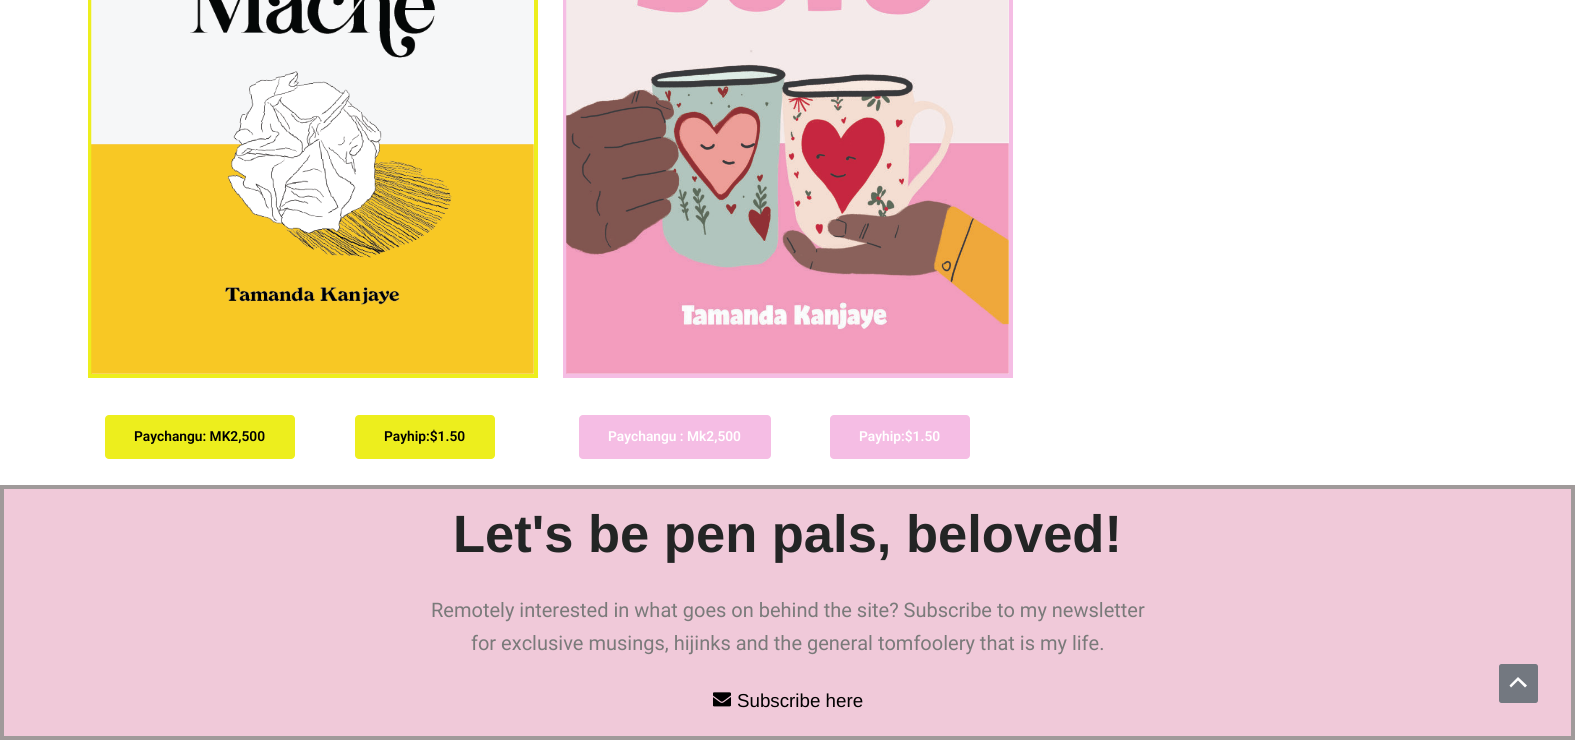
import math
import cairocffi as cairo

surface = cairo.ImageSurface(cairo.FORMAT_RGB24, 1575, 740)
cr = cairo.Context(surface)
options = cairo.FontOptions()
options.set_hint_metrics(cairo.HINT_METRICS_OFF)
options.set_hint_style(cairo.HINT_STYLE_NONE)
cr.set_font_options(options)
cr.set_miter_limit(4)


def use_color(code):
    cr.set_source_rgb(*(v / 255 for v in bytes.fromhex(code[-6:])))


def round_rect(x, y, w, h, r):
    cr.new_sub_path()
    for i, (u, v) in enumerate([(x + w - r, y + h - r), (x + r, y + h - r), (x + r, y + r), (x + w - r, y + r)]):
        cr.arc(u, v, r, i * math.pi / 2, (i + 1) * math.pi / 2)
    cr.close_path()


def picture(path, x, y, w, h):
    cr.save()
    cr.set_source_surface(cairo.ImageSurface.create_from_png(path), x, y)
    cr.rectangle(x, y, w, h)
    cr.fill()
    cr.restore()


use_color("#ffffff")
cr.paint()
cr.rectangle(90, -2, 446, 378)
use_color("#edee1d")
cr.set_line_width(4)
cr.stroke()
picture("img1.png", 91, 0, 443, 374)
round_rect(105, 415, 190, 44, 4)
cr.fill()
cr.select_font_face("Roboto SemiBold")
cr.set_font_size(13.75)
use_color("#000000")
cr.move_to(134, 441)
cr.show_text("Paychangu: MK2,500")
use_color("#edee1d")
round_rect(355, 415, 140, 44, 4)
cr.fill()
use_color("#000000")
cr.move_to(384, 441)
cr.show_text("Payhip:$1.50")
cr.rectangle(565, -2, 446, 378)
use_color("#f5bde4")
cr.stroke()
picture("img2.png", 566, 0, 443, 374)
round_rect(579, 415, 192, 44, 4)
cr.fill()
use_color("#ffffff")
cr.move_to(608, 441)
cr.show_text("Paychangu : Mk2,500")
use_color("#f5bde4")
round_rect(830, 415, 140, 44, 4)
cr.fill()
use_color("#ffffff")
cr.move_to(859, 441)
cr.show_text("Payhip:$1.50")
use_color("#f0c9d9")
cr.rectangle(2, 487, 1571, 251)
cr.fill_preserve()
use_color("#a09a9a")
cr.stroke()
cr.select_font_face("Liberation Sans", cairo.FONT_SLANT_NORMAL, cairo.FONT_WEIGHT_BOLD)
cr.set_font_size(52.5)
use_color("#232525")
cr.move_to(453, 552)
cr.show_text("Let's be pen pals, beloved!")
cr.select_font_face("Roboto")
cr.set_font_size(20)
use_color("#7a7a7a")
cr.move_to(431, 617)
cr.show_text("Remotely interested in what goes on behind the site? Subscribe to my newsletter")
cr.move_to(471, 650)
cr.show_text("for exclusive musings, hijinks and the general tomfoolery that is my life.")
picture("img3.png", 713, 692, 18, 15)
cr.select_font_face("Liberation Sans")
cr.set_font_size(18.75)
use_color("#000000")
cr.move_to(737, 707)
cr.show_text("Subscribe here")
use_color("#737880")
round_rect(1499, 664, 39, 39, 2.5)
cr.fill()
use_color("#ffffff")
cr.new_path()
cr.move_to(1527, 685.5)
cr.line_to(1518, 677)
cr.line_to(1509.5, 685.5)
cr.line_to(1511, 687.5)
cr.line_to(1518, 680.5)
cr.line_to(1525, 687.5)
cr.close_path()
cr.fill()
surface.write_to_png("result.png")
